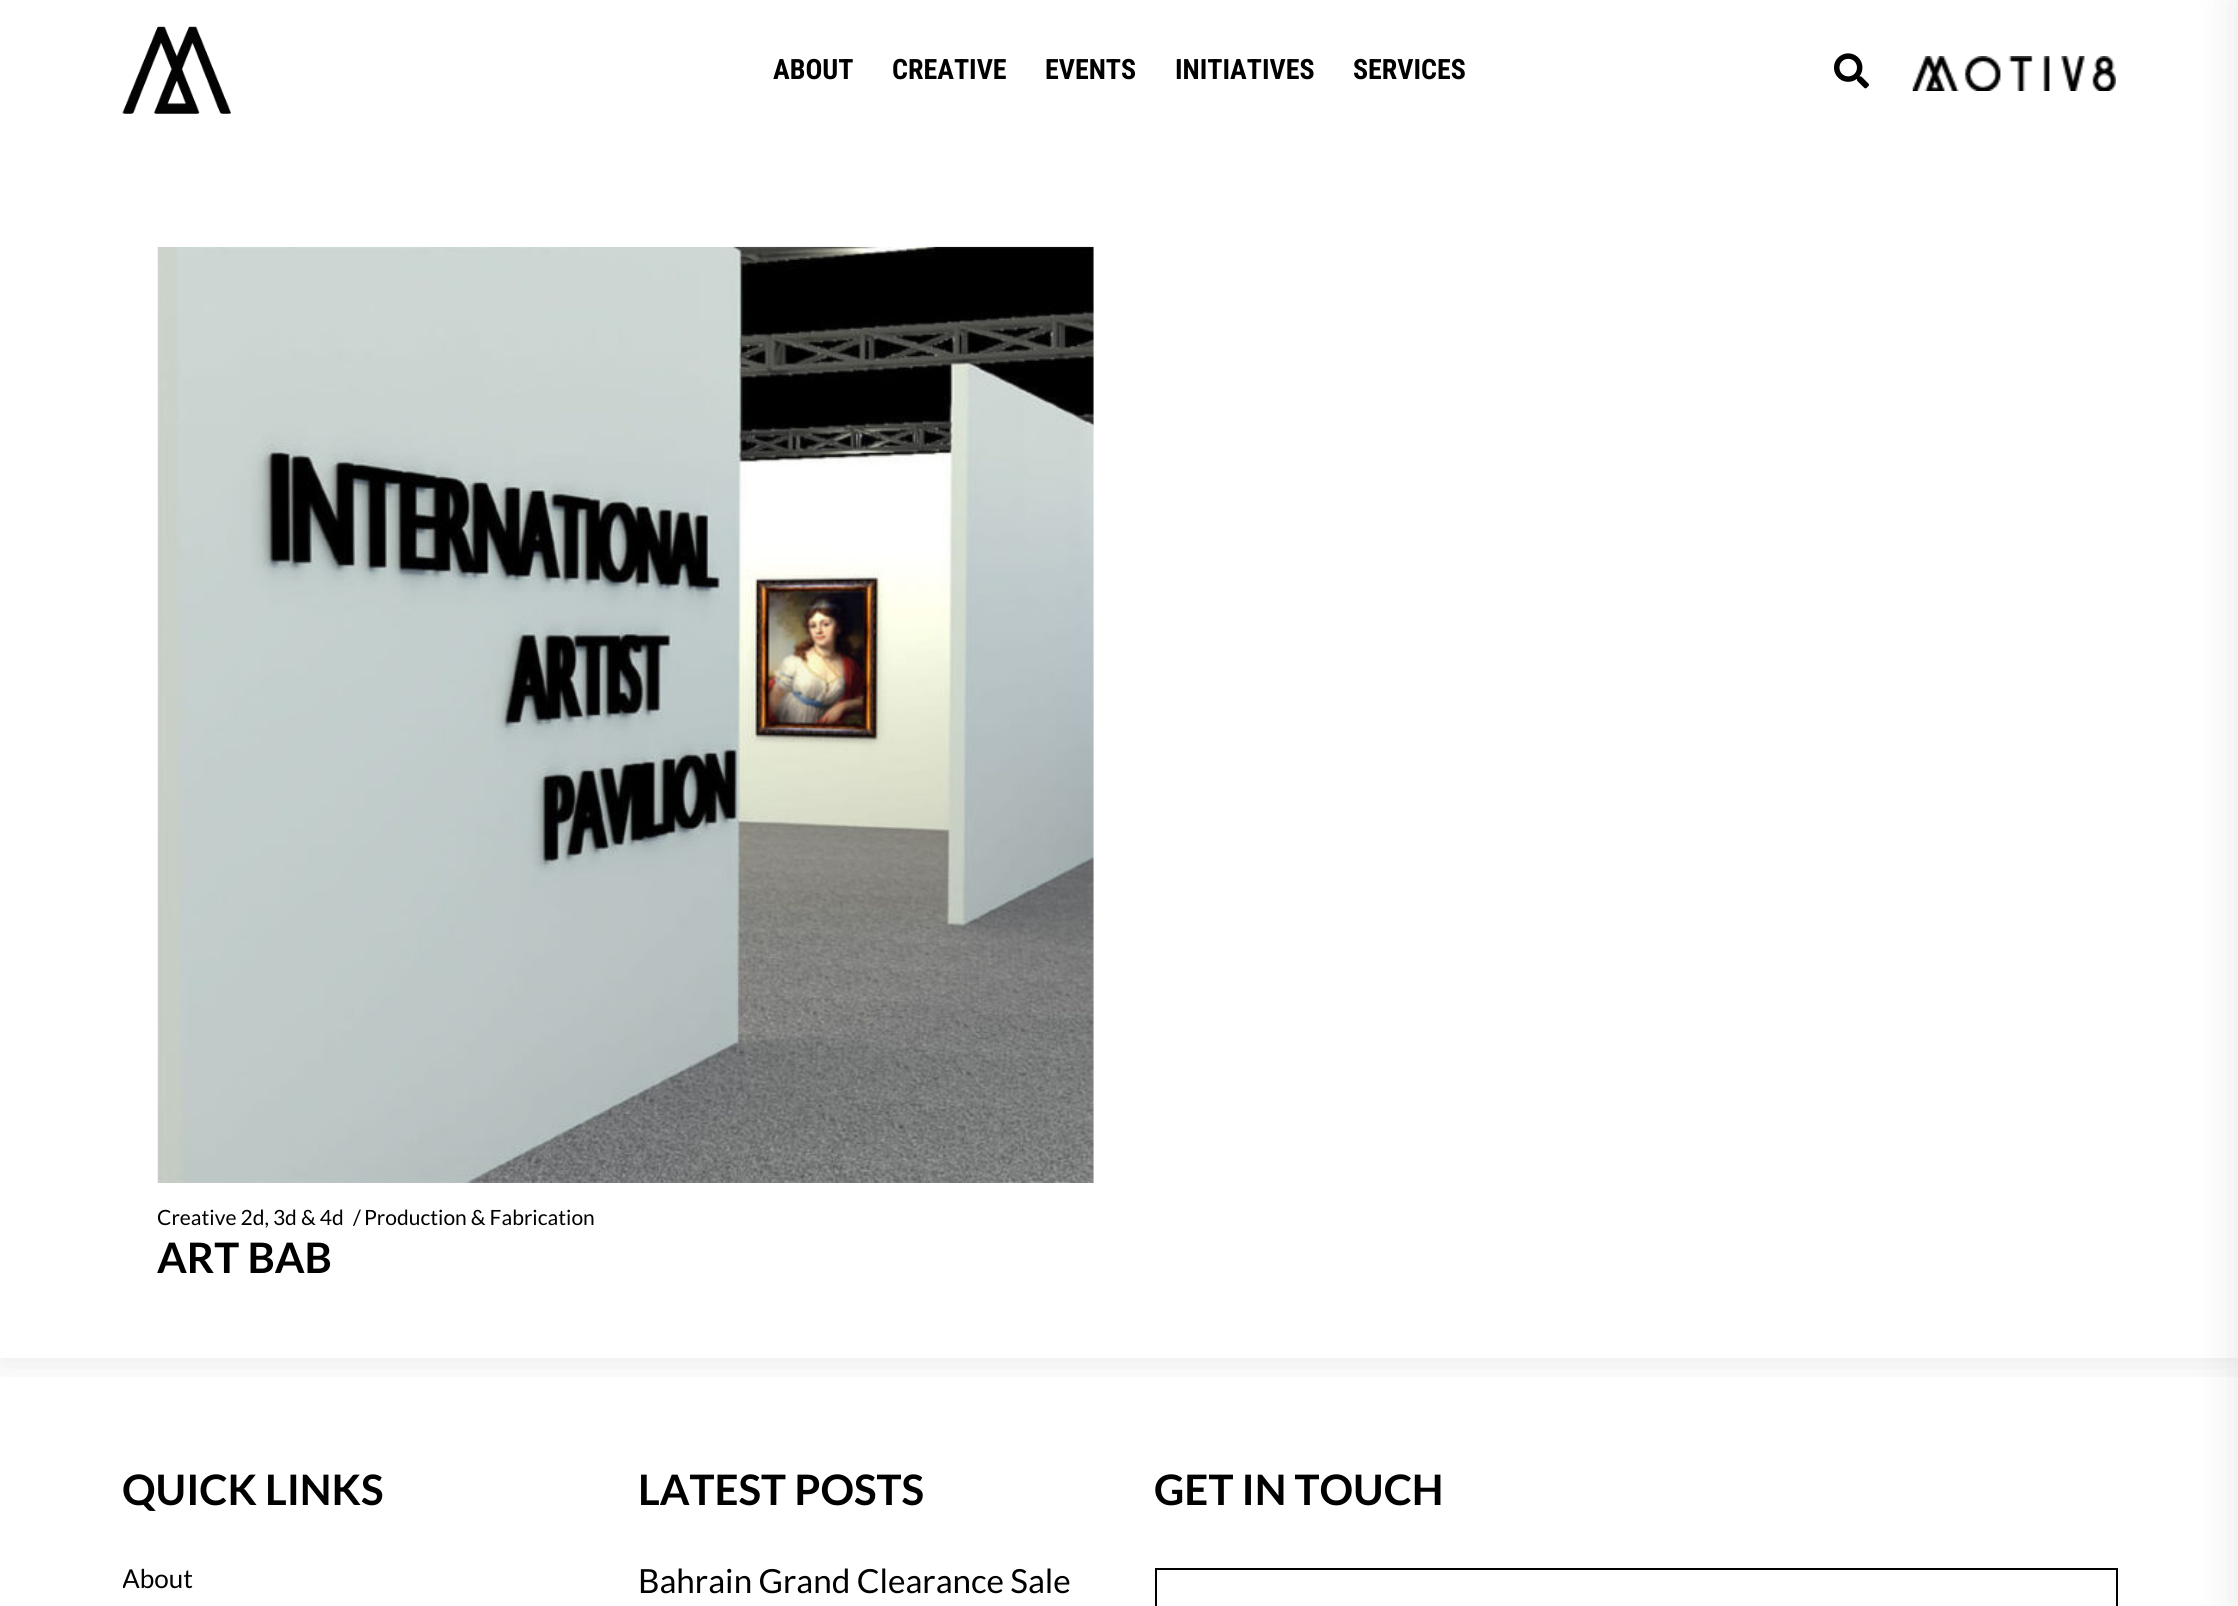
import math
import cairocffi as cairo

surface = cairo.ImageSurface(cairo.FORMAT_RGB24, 2238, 1606)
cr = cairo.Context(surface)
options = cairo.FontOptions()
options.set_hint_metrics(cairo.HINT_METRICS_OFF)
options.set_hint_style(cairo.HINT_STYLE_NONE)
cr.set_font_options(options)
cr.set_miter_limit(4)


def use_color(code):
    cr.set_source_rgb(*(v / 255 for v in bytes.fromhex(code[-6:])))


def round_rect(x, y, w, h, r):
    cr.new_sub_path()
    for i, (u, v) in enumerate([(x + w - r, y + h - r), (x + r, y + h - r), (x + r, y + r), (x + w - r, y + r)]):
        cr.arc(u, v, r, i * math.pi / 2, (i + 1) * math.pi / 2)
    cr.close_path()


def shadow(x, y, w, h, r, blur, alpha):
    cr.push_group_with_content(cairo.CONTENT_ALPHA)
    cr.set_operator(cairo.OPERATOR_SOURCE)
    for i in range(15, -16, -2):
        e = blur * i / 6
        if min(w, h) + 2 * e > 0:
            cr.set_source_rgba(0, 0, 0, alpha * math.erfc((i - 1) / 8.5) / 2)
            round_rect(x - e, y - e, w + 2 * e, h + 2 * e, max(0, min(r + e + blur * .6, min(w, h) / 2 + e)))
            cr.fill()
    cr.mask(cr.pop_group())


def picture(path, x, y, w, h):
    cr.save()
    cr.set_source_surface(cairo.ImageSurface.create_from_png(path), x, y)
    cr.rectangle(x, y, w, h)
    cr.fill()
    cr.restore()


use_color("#ffffff")
cr.paint()
cr.save()
cr.rectangle(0, 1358, 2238, 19)
cr.clip()
use_color("#000000")
shadow(0, 140, 2238, 1218, 0, 22, 0.1)
cr.restore()
use_color("#ffffff")
cr.rectangle(0, 112, 2238, 28)
cr.fill()
picture("img1.png", 122, 26, 109, 88)
cr.select_font_face("Roboto Condensed", cairo.FONT_SLANT_NORMAL, cairo.FONT_WEIGHT_BOLD)
cr.set_font_size(28)
use_color("#000000")
cr.move_to(773, 79)
cr.show_text("ABOUT")
cr.move_to(892, 79)
cr.show_text("CREATIVE")
cr.move_to(1045, 79)
cr.show_text("EVENTS")
cr.move_to(1175, 79)
cr.show_text("INITIATIVES")
cr.move_to(1353, 79)
cr.show_text("SERVICES")
picture("img2.png", 1834, 53, 35, 36)
picture("img3.png", 1912, 56, 204, 35)
picture("img4.png", 157, 246, 937, 937)
cr.select_font_face("Lato")
cr.set_font_size(21)
cr.move_to(157, 1225)
cr.show_text("Creative 2d, 3d & 4d")
cr.move_to(353, 1225)
cr.show_text("/")
cr.move_to(364, 1225)
cr.show_text("Production & Fabrication")
cr.select_font_face("Lato", cairo.FONT_SLANT_NORMAL, cairo.FONT_WEIGHT_BOLD)
cr.set_font_size(42)
cr.move_to(157, 1273)
cr.show_text("ART BAB")
cr.move_to(122, 1505)
cr.show_text("QUICK LINKS")
cr.save()
cr.rectangle(123, 1552, 446, 51)
cr.clip()
cr.select_font_face("Lato")
cr.set_font_size(26)
cr.move_to(122, 1588)
cr.show_text("About")
cr.restore()
cr.move_to(638, 1505)
cr.show_text("LATEST POSTS")
cr.select_font_face("Lato")
cr.set_font_size(33.25)
cr.move_to(638, 1593)
cr.show_text("Bahrain Grand Clearance Sale")
cr.select_font_face("Lato", cairo.FONT_SLANT_NORMAL, cairo.FONT_WEIGHT_BOLD)
cr.set_font_size(42)
cr.move_to(1154, 1505)
cr.show_text("GET IN TOUCH")
cr.rectangle(1156, 1569, 961, 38)
cr.stroke()
use_color("#000000")
shadow(2238, 0, 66, 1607, 0, 22, 0.1)
surface.write_to_png("result.png")
